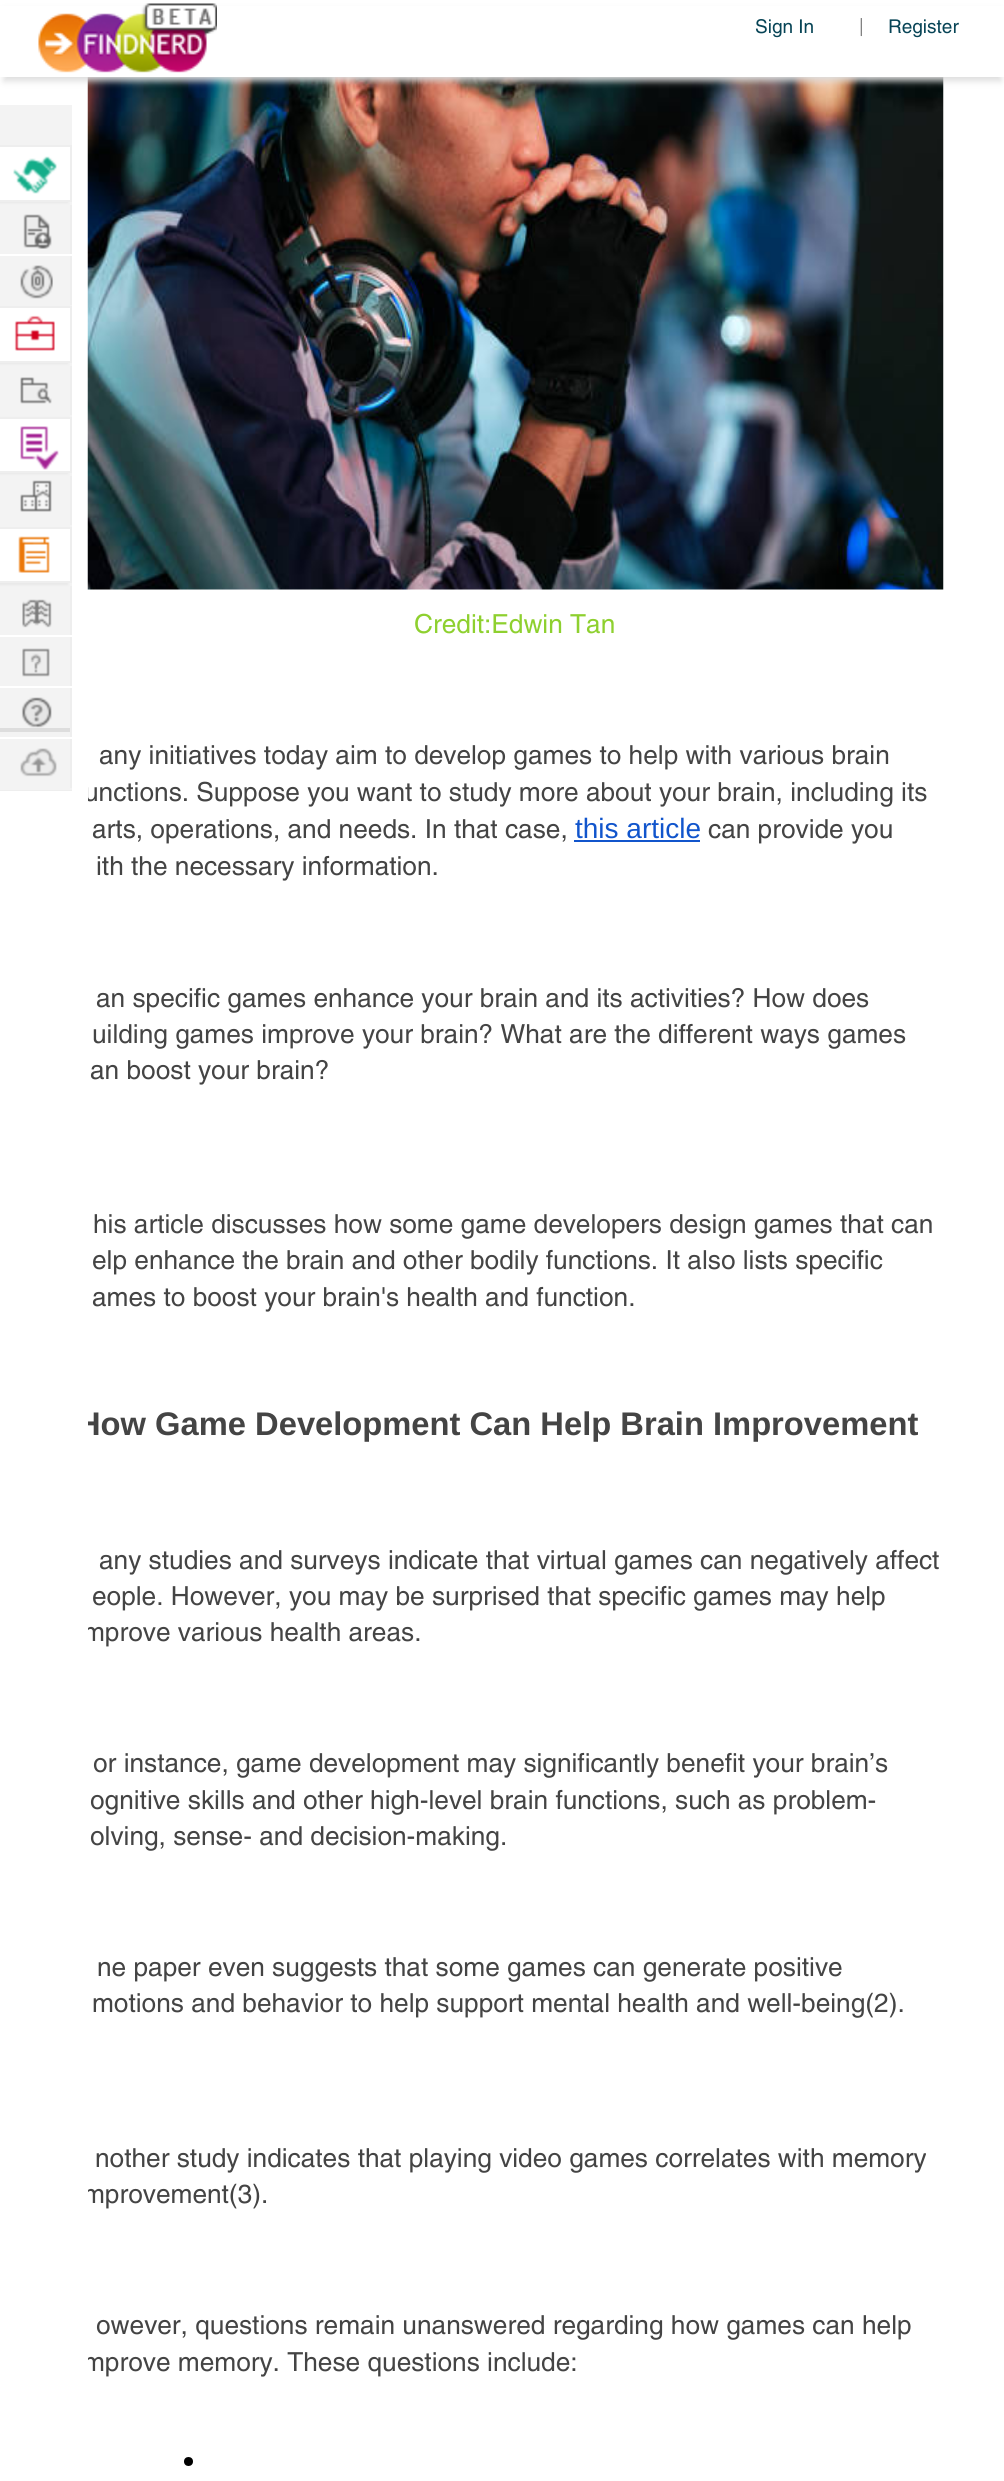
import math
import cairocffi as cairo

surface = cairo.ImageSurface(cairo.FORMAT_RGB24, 1004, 2481)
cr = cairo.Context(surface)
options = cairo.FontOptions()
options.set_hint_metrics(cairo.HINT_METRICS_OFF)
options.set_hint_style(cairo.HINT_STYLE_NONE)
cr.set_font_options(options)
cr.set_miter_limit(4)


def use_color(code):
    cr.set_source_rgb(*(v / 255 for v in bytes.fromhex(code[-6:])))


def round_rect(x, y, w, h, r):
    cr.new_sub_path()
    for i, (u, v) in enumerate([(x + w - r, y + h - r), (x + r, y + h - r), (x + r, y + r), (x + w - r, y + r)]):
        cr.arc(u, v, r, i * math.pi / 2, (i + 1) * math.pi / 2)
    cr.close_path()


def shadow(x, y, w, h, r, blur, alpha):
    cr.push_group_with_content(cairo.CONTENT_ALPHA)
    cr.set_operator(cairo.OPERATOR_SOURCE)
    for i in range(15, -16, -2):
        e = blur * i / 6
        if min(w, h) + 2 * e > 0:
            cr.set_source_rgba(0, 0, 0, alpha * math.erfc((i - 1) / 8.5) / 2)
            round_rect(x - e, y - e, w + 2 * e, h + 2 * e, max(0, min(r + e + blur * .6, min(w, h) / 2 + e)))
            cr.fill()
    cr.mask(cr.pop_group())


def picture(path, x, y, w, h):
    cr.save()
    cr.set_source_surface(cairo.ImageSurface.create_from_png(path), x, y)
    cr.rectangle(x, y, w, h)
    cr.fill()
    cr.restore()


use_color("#ffffff")
cr.paint()
picture("img14.png", 87, 77, 857, 513)
use_color("#dddddd")
shadow(4, 11, 997, 70, 0, 3.5, 1)
use_color("#ffffff")
cr.rectangle(0, 6, 1004, 71)
cr.fill()
picture("img1.png", 38, 3, 179, 70)
cr.select_font_face("Helvetica")
cr.set_font_size(19)
use_color("#074456")
cr.move_to(755, 33)
cr.show_text("Sign In")
cr.set_font_size(18)
use_color("#828282")
cr.move_to(859, 32)
cr.show_text("|")
cr.set_font_size(19)
use_color("#074456")
cr.move_to(888, 33)
cr.show_text("Register")
use_color("#f3f3f3")
cr.rectangle(0, 105, 72, 683)
cr.fill()
use_color("#eeeeee")
cr.rectangle(0, 790, 72, 1)
cr.fill()
use_color("#dddddd")
shadow(-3, 147, 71, 56, 0, 1, 0.5)
use_color("#ffffff")
cr.rectangle(0, 147, 70, 53)
cr.fill()
use_color("#eeeeee")
cr.rectangle(0, 145, 72, 2)
cr.fill()
cr.rectangle(70, 145, 2, 56)
cr.fill()
cr.rectangle(0, 200, 72, 2)
cr.fill()
picture("img2.png", 13, 156, 44, 38)
cr.rectangle(70, 205, 2, 101)
cr.fill()
use_color("#ffffff")
cr.rectangle(0, 254, 72, 2)
cr.fill()
picture("img3.png", 23, 214, 29, 35)
use_color("#f3f3f3")
cr.rectangle(70, 305, 2, 1)
cr.fill()
picture("img4.png", 20, 265, 33, 34)
use_color("#dddddd")
shadow(-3, 308, 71, 56, 0, 1, 0.5)
use_color("#ffffff")
cr.rectangle(0, 308, 70, 53)
cr.fill()
use_color("#eeeeee")
cr.rectangle(0, 306, 72, 2)
cr.fill()
cr.rectangle(70, 306, 2, 56)
cr.fill()
cr.rectangle(0, 361, 72, 2)
cr.fill()
picture("img5.png", 14, 315, 41, 36)
cr.rectangle(70, 366, 2, 51)
cr.fill()
use_color("#f3f3f3")
cr.rectangle(70, 415, 2, 2)
cr.fill()
picture("img6.png", 20, 377, 32, 27)
use_color("#dddddd")
shadow(-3, 418, 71, 56, 0, 1, 0.5)
use_color("#ffffff")
cr.rectangle(0, 419, 70, 52)
cr.fill()
use_color("#eeeeee")
cr.rectangle(0, 417, 72, 2)
cr.fill()
cr.rectangle(70, 417, 2, 56)
cr.fill()
cr.rectangle(0, 471, 72, 2)
cr.fill()
picture("img7.png", 20, 426, 39, 44)
cr.rectangle(70, 476, 2, 51)
cr.fill()
use_color("#f3f3f3")
cr.rectangle(70, 525, 2, 2)
cr.fill()
picture("img8.png", 20, 480, 32, 32)
use_color("#dddddd")
shadow(-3, 529, 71, 56, 0, 1, 0.5)
use_color("#ffffff")
cr.rectangle(0, 529, 70, 52)
cr.fill()
use_color("#eeeeee")
cr.rectangle(0, 527, 72, 2)
cr.fill()
cr.rectangle(70, 527, 2, 56)
cr.fill()
cr.rectangle(0, 581, 72, 2)
cr.fill()
picture("img9.png", 18, 536, 32, 37)
cr.rectangle(70, 586, 2, 203)
cr.fill()
use_color("#ffffff")
cr.rectangle(0, 635, 72, 2)
cr.fill()
picture("img10.png", 22, 599, 30, 29)
cr.rectangle(0, 686, 72, 2)
cr.fill()
picture("img11.png", 22, 648, 28, 29)
cr.rectangle(0, 737, 72, 2)
cr.fill()
use_color("#dddddd")
cr.rectangle(0, 728, 70, 4)
cr.fill()
picture("img12.png", 21, 697, 31, 31)
use_color("#f3f3f3")
cr.rectangle(0, 788, 72, 2)
cr.fill()
picture("img13.png", 20, 748, 37, 29)
cr.set_font_size(26.25)
use_color("#8ed02f")
cr.move_to(414, 633)
cr.show_text("Credit:Edwin Tan")
use_color("#444444")
cr.move_to(99, 764)
cr.show_text("any initiatives today aim to develop games to help with various brain")
cr.save()
cr.rectangle(88, 0, 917, 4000)
cr.clip()
cr.move_to(84, 801)
cr.show_text("unctions. Suppose you want to study more about your brain, including its")
cr.restore()
cr.move_to(92, 838)
cr.show_text("arts, operations, and needs. In that case,")
cr.select_font_face("Liberation Sans")
cr.set_font_size(28)
use_color("#1155cc")
cr.move_to(575, 838)
cr.show_text("this article")
cr.rectangle(574, 840, 126, 2)
cr.fill()
cr.select_font_face("Helvetica")
cr.set_font_size(26.25)
use_color("#444444")
cr.move_to(708, 838)
cr.show_text("can provide you")
cr.move_to(96, 875)
cr.show_text("ith the necessary information.")
cr.move_to(96, 1007)
cr.show_text("an specific games enhance your brain and its activities? How does")
cr.move_to(92, 1043)
cr.show_text("uilding games improve your brain? What are the different ways games")
cr.move_to(90, 1079)
cr.show_text("an boost your brain?")
cr.move_to(93, 1233)
cr.show_text("his article discusses how some game developers design games that can")
cr.move_to(92, 1269)
cr.show_text("elp enhance the brain and other bodily functions. It also lists specific")
cr.move_to(92, 1306)
cr.show_text("ames to boost your brain's health and function.")
cr.save()
cr.rectangle(88, 0, 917, 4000)
cr.clip()
cr.select_font_face("Liberation Sans", cairo.FONT_SLANT_NORMAL, cairo.FONT_WEIGHT_BOLD)
cr.set_font_size(32.7)
cr.move_to(77, 1435)
cr.show_text("How Game Development Can Help Brain Improvement")
cr.restore()
cr.move_to(99, 1569)
cr.show_text("any studies and surveys indicate that virtual games can negatively affect")
cr.move_to(92, 1605)
cr.show_text("eople. However, you may be surprised that specific games may help")
cr.save()
cr.rectangle(88, 0, 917, 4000)
cr.clip()
cr.move_to(83, 1641)
cr.show_text("mprove various health areas.")
cr.restore()
cr.move_to(93, 1772)
cr.show_text("or instance, game development may significantly benefit your brain’s")
cr.move_to(90, 1809)
cr.show_text("ognitive skills and other high-level brain functions, such as problem-")
cr.move_to(90, 1845)
cr.show_text("olving, sense- and decision-making.")
cr.move_to(97, 1976)
cr.show_text("ne paper even suggests that some games can generate positive")
cr.move_to(92, 2012)
cr.show_text("motions and behavior to help support mental health and well-being(2).")
cr.move_to(95, 2167)
cr.show_text("nother study indicates that playing video games correlates with memory")
cr.save()
cr.rectangle(88, 0, 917, 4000)
cr.clip()
cr.move_to(83, 2203)
cr.show_text("mprovement(3).")
cr.restore()
cr.move_to(96, 2334)
cr.show_text("owever, questions remain unanswered regarding how games can help")
cr.save()
cr.rectangle(88, 0, 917, 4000)
cr.clip()
cr.move_to(83, 2371)
cr.show_text("mprove memory. These questions include:")
cr.restore()
use_color("#000000")
cr.new_path()
cr.arc(188.5, 2461.5, 4.5, 0, 2 * math.pi)
cr.fill()
surface.write_to_png("result.png")
